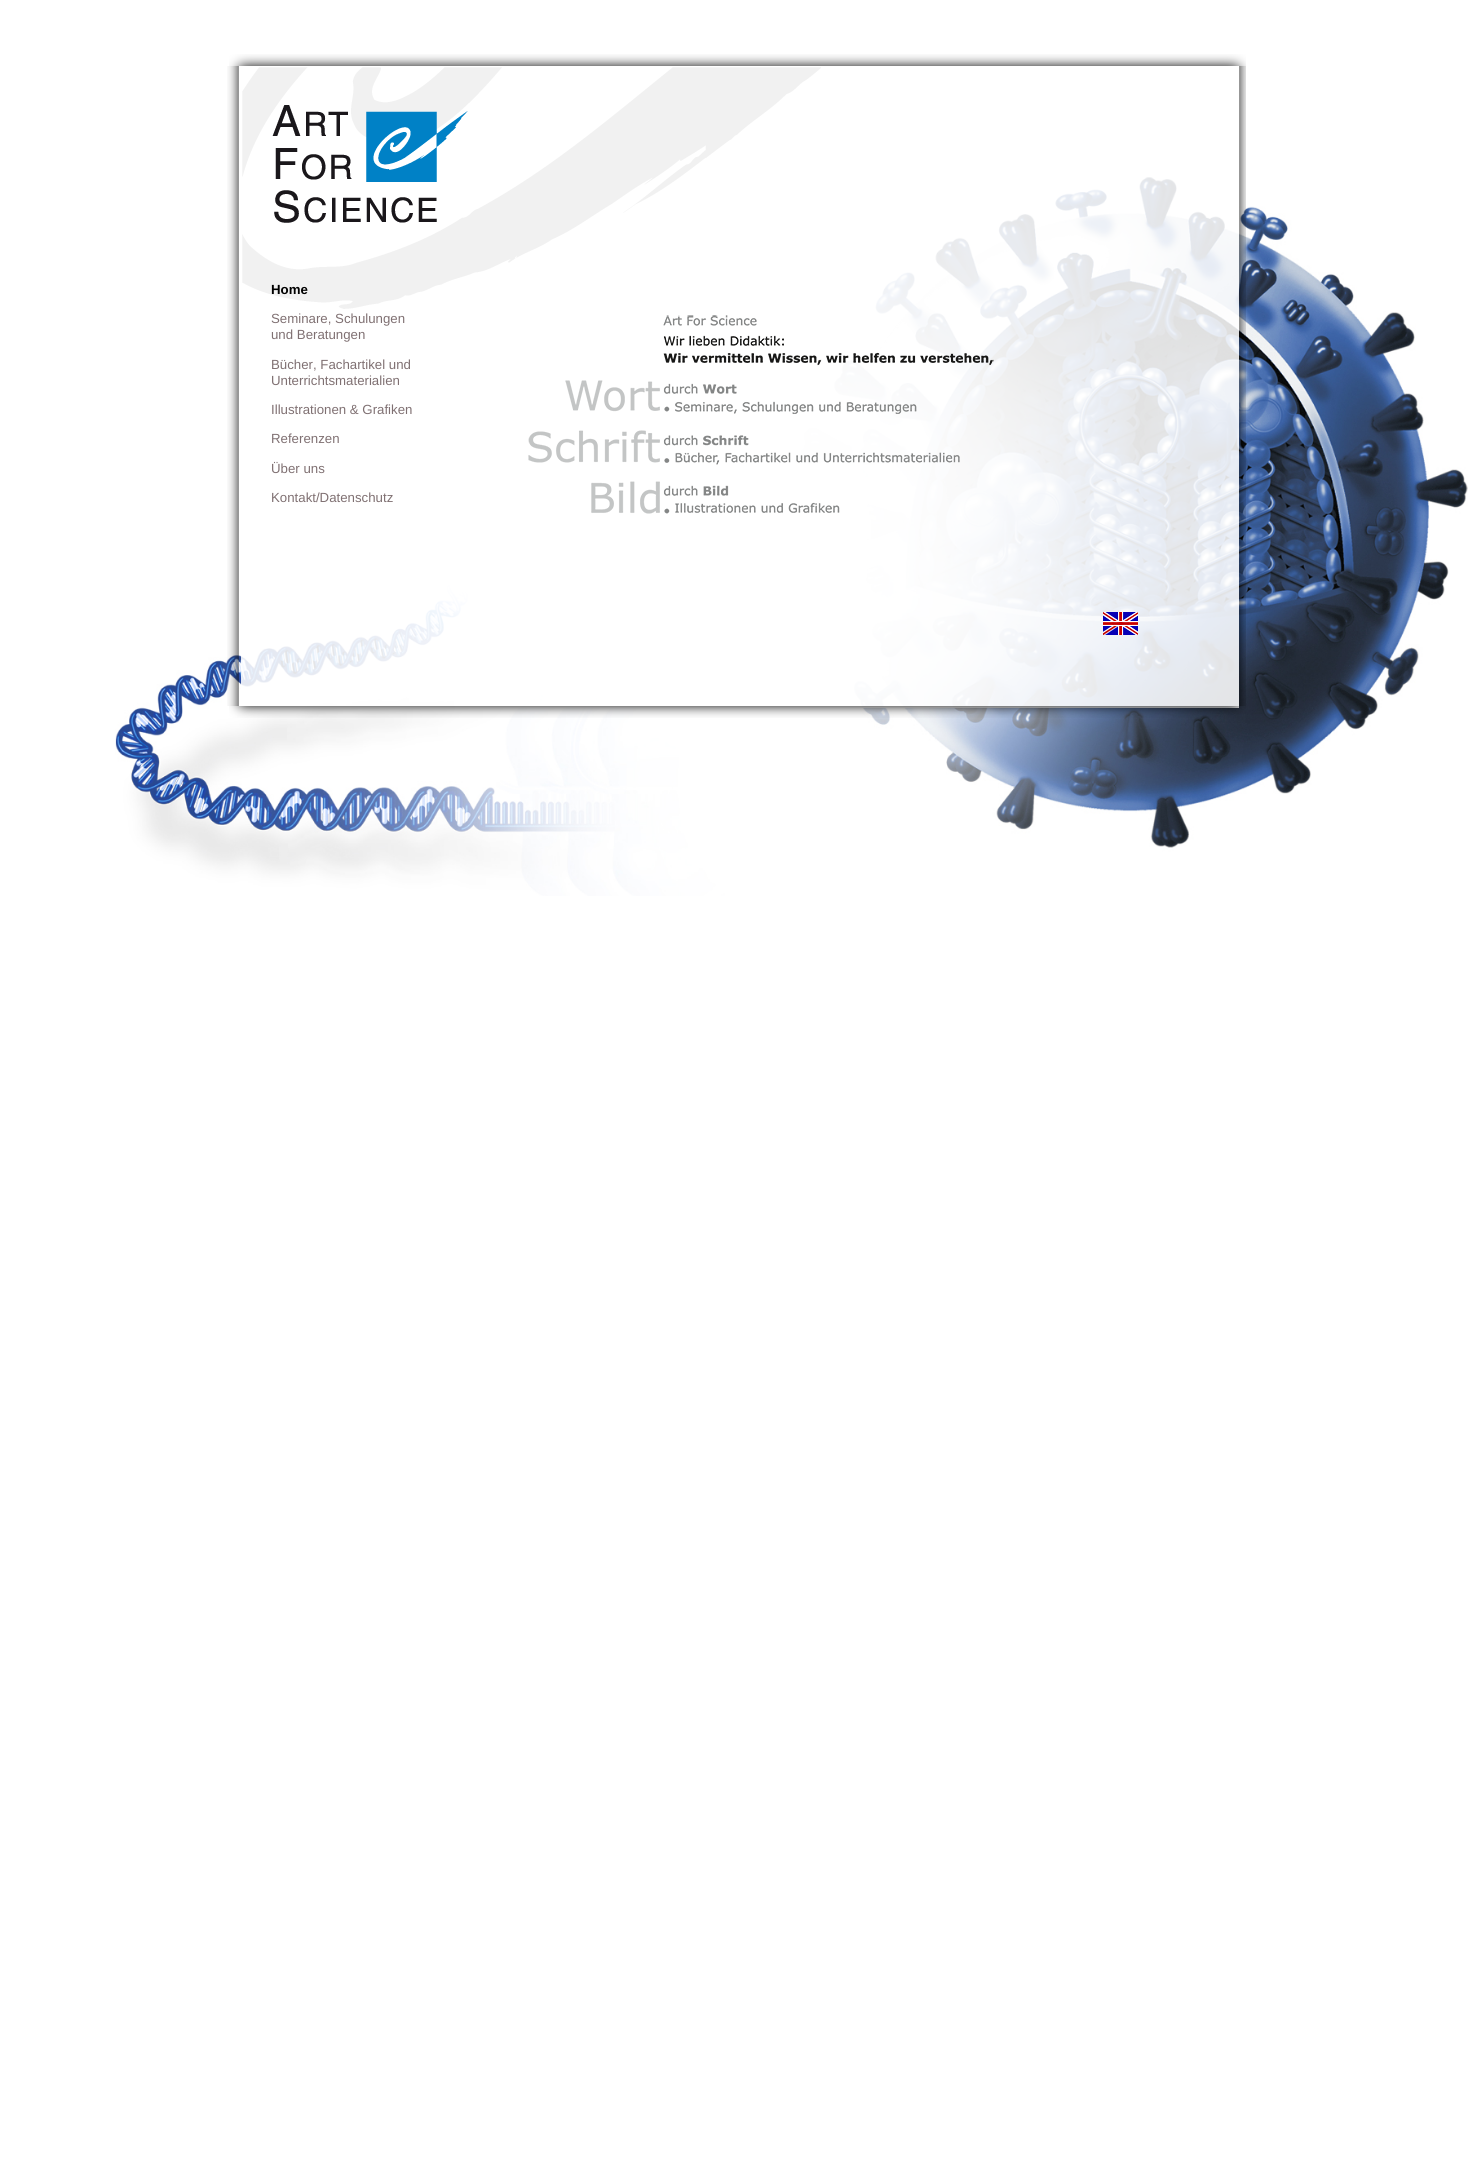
import math
import cairocffi as cairo

surface = cairo.ImageSurface(cairo.FORMAT_RGB24, 1468, 2166)
cr = cairo.Context(surface)
options = cairo.FontOptions()
options.set_hint_metrics(cairo.HINT_METRICS_OFF)
options.set_hint_style(cairo.HINT_STYLE_NONE)
cr.set_font_options(options)
cr.set_miter_limit(4)


def use_color(code):
    cr.set_source_rgb(*(v / 255 for v in bytes.fromhex(code[-6:])))


def picture(path, x, y, w, h):
    cr.save()
    cr.set_source_surface(cairo.ImageSurface.create_from_png(path), x, y)
    cr.rectangle(x, y, w, h)
    cr.fill()
    cr.restore()


use_color("#ffffff")
cr.paint()
picture("img1.png", 115, 177, 1353, 719)
picture("img2.png", 229, 54, 1017, 12)
picture("img3.png", 227, 66, 1019, 640)
cr.set_source_rgba(1, 1, 1, 0.87)
cr.rectangle(241, 177, 998, 531)
cr.fill()
picture("img4.png", 242, 67, 579, 242)
cr.select_font_face("Liberation Sans", cairo.FONT_SLANT_NORMAL, cairo.FONT_WEIGHT_BOLD)
cr.set_font_size(13.25)
use_color("#000000")
cr.move_to(271, 294)
cr.show_text("Home")
cr.select_font_face("Liberation Sans")
use_color("#7f7072")
cr.move_to(271, 323)
cr.show_text("Seminare, Schulungen")
cr.move_to(271, 339)
cr.show_text("und Beratungen")
cr.move_to(271, 369)
cr.show_text("Bücher, Fachartikel und")
cr.move_to(271, 385)
cr.show_text("Unterrichtsmaterialien")
cr.move_to(271, 414)
cr.show_text("Illustrationen & Grafiken")
cr.move_to(271, 443)
cr.show_text("Referenzen")
cr.move_to(271, 473)
cr.show_text("Über uns")
cr.move_to(271, 502)
cr.show_text("Kontakt/Datenschutz")
picture("img5.png", 528, 315, 466, 199)
picture("img6.png", 1103, 612, 35, 23)
picture("img7.png", 229, 706, 1017, 12)
surface.write_to_png("result.png")
